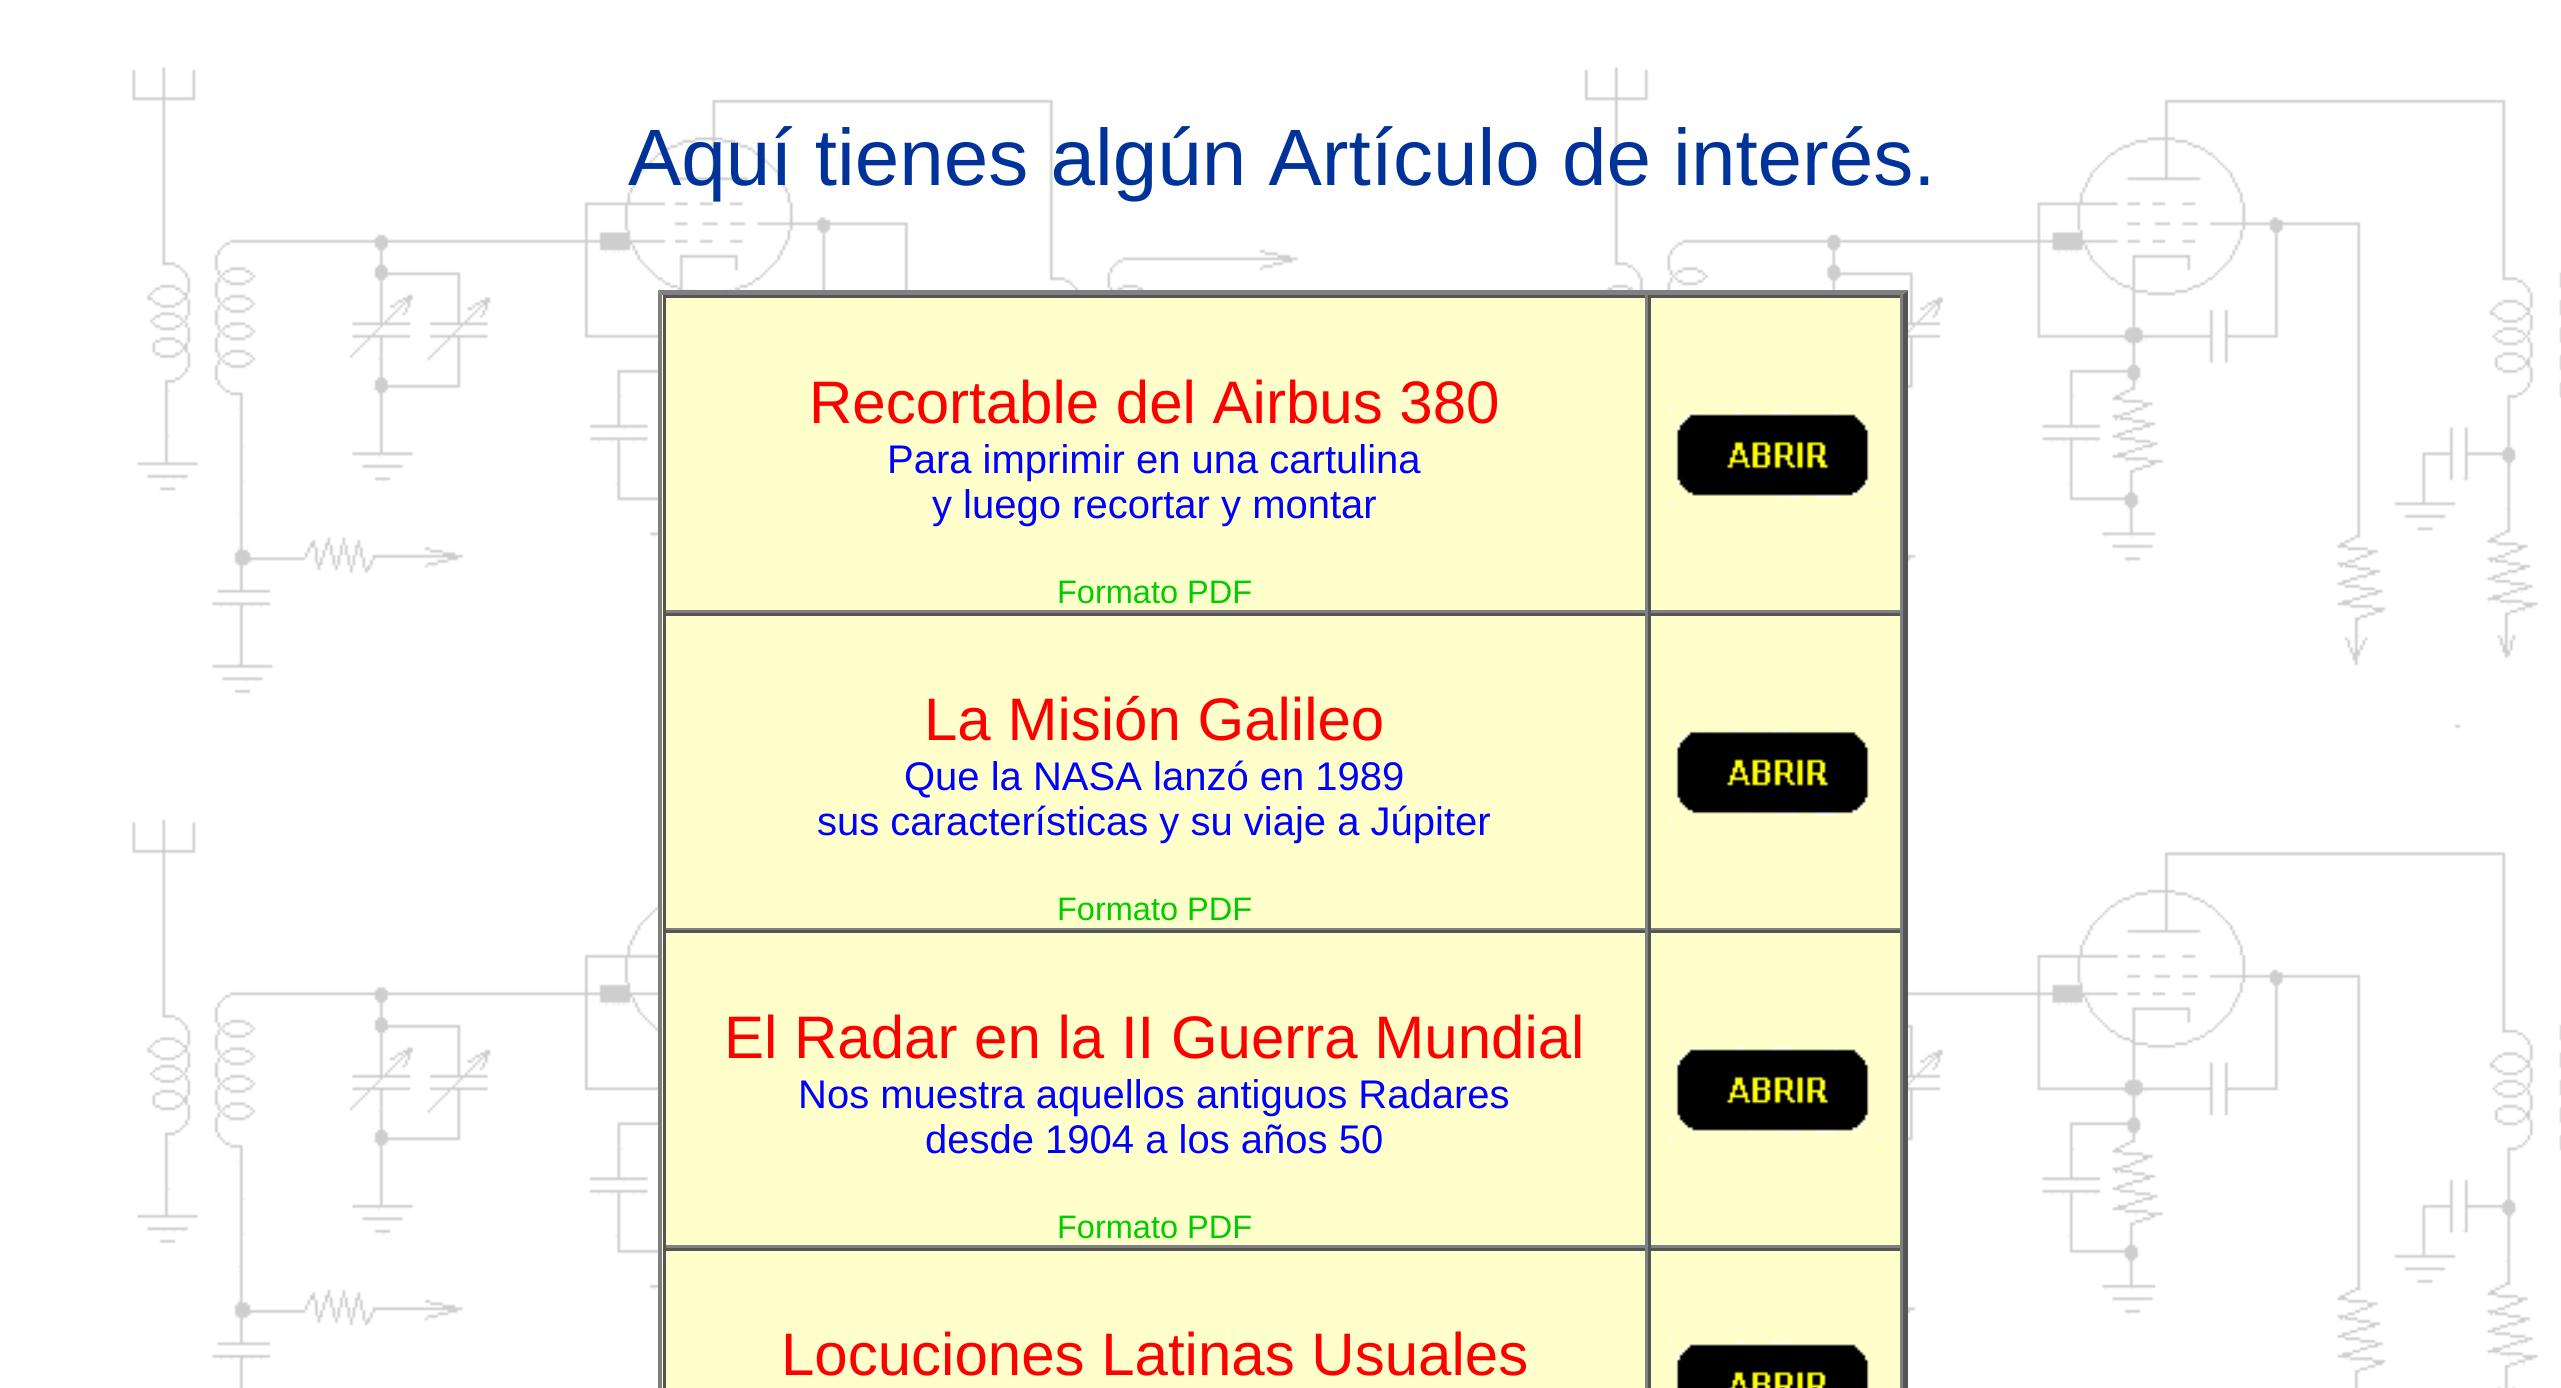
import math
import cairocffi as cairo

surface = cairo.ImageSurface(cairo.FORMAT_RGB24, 2561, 1388)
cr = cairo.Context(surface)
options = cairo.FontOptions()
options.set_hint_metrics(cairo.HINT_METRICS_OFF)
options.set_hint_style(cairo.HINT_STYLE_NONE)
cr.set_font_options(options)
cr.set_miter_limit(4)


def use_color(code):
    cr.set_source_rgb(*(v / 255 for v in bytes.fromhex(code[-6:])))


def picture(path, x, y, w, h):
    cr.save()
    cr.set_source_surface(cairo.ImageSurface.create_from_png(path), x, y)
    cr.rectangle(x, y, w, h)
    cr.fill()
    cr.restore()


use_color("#ffffff")
cr.paint()
picture("img1.png", 132, 67, 2429, 1321)
cr.select_font_face("Liberation Sans")
cr.set_font_size(80)
use_color("#003399")
cr.move_to(628, 185)
cr.show_text("Aquí tienes algún Artículo de interés.")
use_color("#ffffcc")
cr.rectangle(658, 290, 1250, 1098)
cr.fill()
use_color("#808080")
cr.new_path()
cr.move_to(658, 290)
cr.line_to(1908, 290)
cr.line_to(1902, 295)
cr.line_to(662, 295)
cr.close_path()
cr.fill()
use_color("#555555")
cr.new_path()
cr.move_to(1908, 290)
cr.line_to(1908, 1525)
cr.line_to(1902, 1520)
cr.line_to(1902, 295)
cr.close_path()
cr.fill()
use_color("#808080")
cr.new_path()
cr.move_to(658, 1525)
cr.line_to(658, 290)
cr.line_to(662, 295)
cr.line_to(662, 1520)
cr.close_path()
cr.fill()
use_color("#555555")
cr.rectangle(663, 295, 1240, 3)
cr.fill()
use_color("#808080")
cr.rectangle(1645, 295, 3, 318)
cr.fill()
cr.rectangle(663, 610, 985, 3)
cr.fill()
use_color("#555555")
cr.rectangle(663, 295, 3, 318)
cr.fill()
cr.set_font_size(60)
use_color("#ff0000")
cr.move_to(809, 423)
cr.show_text("Recortable del Airbus 380")
cr.set_font_size(40)
use_color("#0000ff")
cr.move_to(887, 473)
cr.show_text("Para imprimir en una cartulina")
cr.move_to(932, 518)
cr.show_text("y luego recortar y montar")
cr.set_font_size(32.5)
use_color("#00cc00")
cr.move_to(1057, 603)
cr.show_text("Formato PDF")
use_color("#808080")
cr.rectangle(1900, 295, 3, 318)
cr.fill()
cr.rectangle(1648, 610, 255, 3)
cr.fill()
use_color("#555555")
cr.rectangle(1648, 295, 3, 318)
cr.fill()
picture("img2.png", 1669, 407, 211, 98)
cr.rectangle(663, 613, 1240, 3)
cr.fill()
use_color("#808080")
cr.rectangle(1645, 613, 3, 317)
cr.fill()
cr.rectangle(663, 928, 985, 2)
cr.fill()
use_color("#555555")
cr.rectangle(663, 613, 3, 317)
cr.fill()
cr.set_font_size(60)
use_color("#ff0000")
cr.move_to(924, 740)
cr.show_text("La Misión Galileo")
cr.set_font_size(40)
use_color("#0000ff")
cr.move_to(904, 790)
cr.show_text("Que la NASA lanzó en 1989")
cr.move_to(817, 835)
cr.show_text("sus características y su viaje a Júpiter")
cr.set_font_size(32.5)
use_color("#00cc00")
cr.move_to(1057, 920)
cr.show_text("Formato PDF")
use_color("#808080")
cr.rectangle(1900, 613, 3, 317)
cr.fill()
cr.rectangle(1648, 928, 255, 2)
cr.fill()
use_color("#555555")
cr.rectangle(1648, 613, 3, 317)
cr.fill()
picture("img3.png", 1669, 724, 211, 99)
cr.rectangle(663, 930, 1240, 3)
cr.fill()
use_color("#808080")
cr.rectangle(1645, 930, 3, 318)
cr.fill()
cr.rectangle(663, 1245, 985, 3)
cr.fill()
use_color("#555555")
cr.rectangle(663, 930, 3, 318)
cr.fill()
cr.set_font_size(60)
use_color("#ff0000")
cr.move_to(724, 1058)
cr.show_text("El Radar en la II Guerra Mundial")
cr.set_font_size(40)
use_color("#0000ff")
cr.move_to(798, 1108)
cr.show_text("Nos muestra aquellos antiguos Radares")
cr.move_to(925, 1153)
cr.show_text("desde 1904 a los años 50")
cr.set_font_size(32.5)
use_color("#00cc00")
cr.move_to(1057, 1238)
cr.show_text("Formato PDF")
use_color("#808080")
cr.rectangle(1900, 930, 3, 318)
cr.fill()
cr.rectangle(1648, 1245, 255, 3)
cr.fill()
use_color("#555555")
cr.rectangle(1648, 930, 3, 318)
cr.fill()
picture("img2.png", 1669, 1042, 211, 98)
cr.rectangle(663, 1248, 1240, 3)
cr.fill()
use_color("#808080")
cr.rectangle(1645, 1248, 3, 140)
cr.fill()
use_color("#555555")
cr.rectangle(663, 1248, 3, 140)
cr.fill()
cr.set_font_size(60)
use_color("#ff0000")
cr.move_to(781, 1375)
cr.show_text("Locuciones Latinas Usuales")
use_color("#808080")
cr.rectangle(1900, 1248, 3, 140)
cr.fill()
use_color("#555555")
cr.rectangle(1648, 1248, 3, 140)
cr.fill()
picture("img4.png", 1669, 1337, 200, 51)
surface.write_to_png("result.png")
